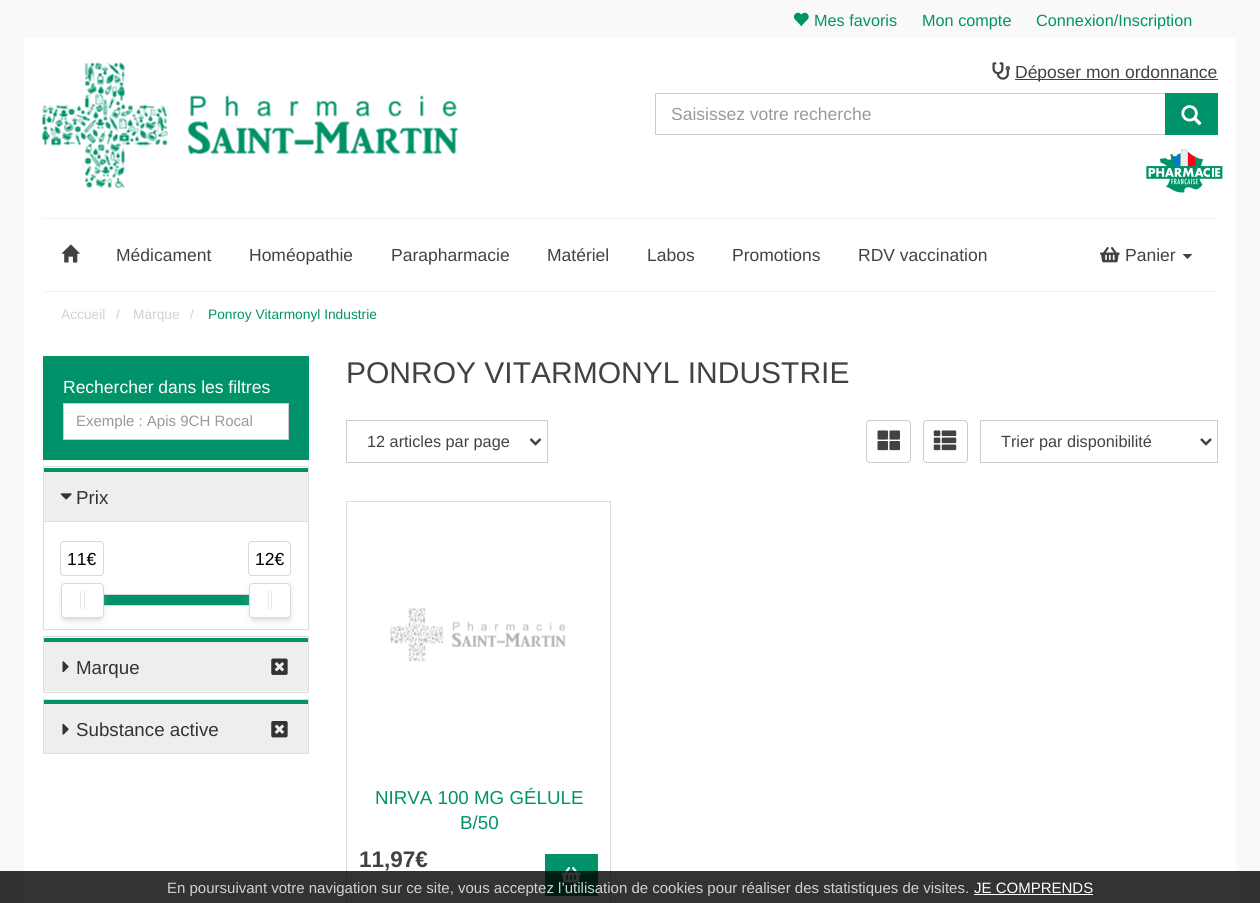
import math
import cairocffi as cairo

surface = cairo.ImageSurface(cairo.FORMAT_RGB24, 1260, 903)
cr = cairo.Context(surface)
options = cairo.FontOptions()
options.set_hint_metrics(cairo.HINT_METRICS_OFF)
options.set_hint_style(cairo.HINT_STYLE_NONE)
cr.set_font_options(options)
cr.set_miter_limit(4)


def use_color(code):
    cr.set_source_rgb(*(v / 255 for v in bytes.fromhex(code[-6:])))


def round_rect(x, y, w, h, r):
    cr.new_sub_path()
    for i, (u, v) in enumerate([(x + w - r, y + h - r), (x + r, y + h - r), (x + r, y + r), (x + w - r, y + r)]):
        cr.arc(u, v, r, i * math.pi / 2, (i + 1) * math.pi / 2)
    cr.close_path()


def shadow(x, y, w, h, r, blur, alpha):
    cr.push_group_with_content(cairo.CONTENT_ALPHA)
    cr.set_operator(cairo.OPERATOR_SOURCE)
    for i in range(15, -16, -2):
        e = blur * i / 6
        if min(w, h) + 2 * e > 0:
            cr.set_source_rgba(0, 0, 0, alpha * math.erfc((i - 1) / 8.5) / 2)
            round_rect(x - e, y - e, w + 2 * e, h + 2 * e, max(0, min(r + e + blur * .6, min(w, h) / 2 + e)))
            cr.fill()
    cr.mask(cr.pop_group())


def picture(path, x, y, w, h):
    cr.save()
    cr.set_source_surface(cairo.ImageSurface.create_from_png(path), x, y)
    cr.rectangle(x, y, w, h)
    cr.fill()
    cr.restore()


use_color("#f9f9f9")
cr.paint()
picture("img1.png", 793, 12, 16, 15)
cr.select_font_face("Liberation Sans")
cr.set_font_size(16.25)
use_color("#00936a")
cr.move_to(814, 26)
cr.show_text("Mes favoris")
cr.move_to(922, 26)
cr.show_text("Mon compte")
cr.move_to(1036, 26)
cr.show_text("Connexion/Inscription")
use_color("#ffffff")
cr.rectangle(24, 38, 1212, 255)
cr.fill()
picture("img2.png", 42, 62, 416, 126)
picture("img3.png", 992, 62, 18, 18)
use_color("#424242")
cr.rectangle(1015, 79, 203, 1)
cr.fill()
cr.set_font_size(17.5)
cr.move_to(1015, 78)
cr.show_text("Déposer mon ordonnance")
cr.rectangle(655.5, 93.5, 510, 41)
use_color("#cccccc")
cr.set_line_width(1)
cr.stroke()
use_color("#999999")
cr.move_to(671, 120)
cr.show_text("Saisissez votre recherche")
use_color("#00936a")
cr.rectangle(1165, 93, 53, 42)
cr.fill()
picture("img4.png", 1181, 105, 21, 21)
picture("img5.png", 1146, 149, 77, 44)
use_color("#f1f1f1")
cr.rectangle(43, 218, 1175, 1)
cr.fill()
cr.rectangle(43, 291, 1175, 1)
cr.fill()
picture("img6.png", 61, 244, 19, 19)
use_color("#424242")
cr.move_to(116, 261)
cr.show_text("Médicament")
cr.move_to(249, 261)
cr.show_text("Homéopathie")
cr.move_to(391, 261)
cr.show_text("Parapharmacie")
cr.move_to(547, 261)
cr.show_text("Matériel")
cr.move_to(647, 261)
cr.show_text("Labos")
cr.move_to(732, 261)
cr.show_text("Promotions")
cr.move_to(858, 261)
cr.show_text("RDV vaccination")
picture("img7.png", 1100, 247, 20, 16)
cr.move_to(1125, 261)
cr.show_text("Panier")
cr.new_path()
cr.move_to(1182.5, 254)
cr.line_to(1192.5, 254)
cr.line_to(1187.5, 259)
cr.close_path()
cr.fill()
use_color("#ffffff")
cr.rectangle(24, 293, 1212, 610)
cr.fill()
cr.set_font_size(13.75)
use_color("#d1d1d1")
cr.move_to(61, 319)
cr.show_text("Accueil")
cr.move_to(116, 319)
cr.show_text("/")
cr.move_to(133, 319)
cr.show_text("Marque")
cr.move_to(190, 319)
cr.show_text("/")
use_color("#00936a")
cr.move_to(208, 319)
cr.show_text("Ponroy Vitarmonyl Industrie")
use_color("#000000")
shadow(43, 358, 266, 103, 0, 0.5, 0.05)
use_color("#00936a")
cr.rectangle(43, 356, 266, 104)
cr.fill()
cr.set_font_size(17.5)
use_color("#ffffff")
cr.move_to(63, 393)
cr.show_text("Rechercher dans les filtres")
cr.rectangle(63.5, 403.5, 225, 36)
cr.fill_preserve()
use_color("#cccccc")
cr.stroke()
cr.set_font_size(15)
use_color("#999999")
cr.move_to(76, 426)
cr.show_text("Exemple : Apis 9CH Rocal")
cr.rectangle(43.5, 466.5, 265, 163)
use_color("#dddddd")
cr.stroke()
use_color("#eeeeee")
cr.rectangle(44, 472, 264, 49)
cr.fill()
use_color("#00936a")
cr.rectangle(44, 468, 264, 4)
cr.fill()
picture("img8.png", 60, 493, 12, 7)
cr.set_font_size(18.75)
use_color("#333333")
cr.move_to(76, 504)
cr.show_text("Prix")
use_color("#dddddd")
cr.rectangle(44, 521, 264, 1)
cr.fill()
cr.rectangle(80.5, 594.5, 190, 11)
use_color("#d3d3d3")
cr.stroke()
use_color("#00936a")
cr.rectangle(104, 595, 145, 10)
cr.fill()
use_color("#bbbbbb")
shadow(65, 590, 35, 28, 0, 4, 1)
use_color("#ffffff")
round_rect(61.5, 583.5, 42, 34, 3.5)
cr.fill_preserve()
use_color("#d9d9d9")
cr.stroke()
round_rect(60.5, 541.5, 43, 34, 3.5)
cr.stroke()
cr.set_font_size(17.5)
use_color("#000000")
cr.move_to(67, 565)
cr.show_text("11€")
use_color("#e8e7e6")
cr.rectangle(80, 591, 1, 18)
cr.fill()
cr.rectangle(84, 591, 1, 18)
cr.fill()
use_color("#bbbbbb")
shadow(253, 590, 35, 28, 0, 4, 1)
use_color("#ffffff")
round_rect(249.5, 583.5, 41, 34, 3.5)
cr.fill_preserve()
use_color("#d9d9d9")
cr.stroke()
round_rect(248.5, 541.5, 42, 34, 3.5)
cr.stroke()
use_color("#000000")
cr.move_to(255, 565)
cr.show_text("12€")
use_color("#e8e7e6")
cr.rectangle(268, 591, 1, 18)
cr.fill()
cr.rectangle(271, 591, 1, 18)
cr.fill()
cr.rectangle(43.5, 636.5, 265, 56)
use_color("#dddddd")
cr.stroke()
use_color("#eeeeee")
cr.rectangle(44, 642, 264, 49)
cr.fill()
use_color("#00936a")
cr.rectangle(44, 638, 264, 4)
cr.fill()
picture("img9.png", 62, 661, 7, 12)
cr.set_font_size(18.75)
use_color("#333333")
cr.move_to(76, 674)
cr.show_text("Marque")
picture("img10.png", 271, 658, 17, 17)
cr.rectangle(43.5, 699.5, 265, 54)
use_color("#dddddd")
cr.stroke()
use_color("#eeeeee")
cr.rectangle(44, 704, 264, 49)
cr.fill()
use_color("#00936a")
cr.rectangle(44, 700, 264, 4)
cr.fill()
picture("img11.png", 62, 723, 7, 12)
use_color("#333333")
cr.move_to(76, 736)
cr.show_text("Substance active")
picture("img12.png", 271, 721, 17, 17)
cr.set_font_size(30)
use_color("#424242")
cr.move_to(346, 383)
cr.show_text("PONROY VITARMONYL INDUSTRIE")
cr.rectangle(346.5, 420.5, 201, 42)
use_color("#cccccc")
cr.stroke()
cr.new_path()
cr.move_to(530.5, 439)
cr.line_to(535.5, 444)
cr.line_to(540.5, 439)
use_color("#424242")
cr.set_line_width(2.5)
cr.stroke()
cr.set_font_size(16.25)
cr.move_to(367, 447)
cr.show_text("12 articles par page")
round_rect(866.5, 420.5, 44, 42, 3.5)
use_color("#cccccc")
cr.set_line_width(1)
cr.stroke()
picture("img13.png", 877, 430, 23, 21)
round_rect(923.5, 420.5, 44, 42, 3.5)
cr.stroke()
picture("img14.png", 933, 430, 24, 21)
cr.rectangle(980.5, 420.5, 237, 42)
cr.stroke()
cr.new_path()
cr.move_to(1201, 439)
cr.line_to(1206, 444)
cr.line_to(1211, 439)
use_color("#424242")
cr.set_line_width(2.5)
cr.stroke()
cr.move_to(1001, 447)
cr.show_text("Trier par disponibilité")
cr.rectangle(346.5, 501.5, 264, 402)
use_color("#dddddd")
cr.set_line_width(1)
cr.stroke()
picture("img15.png", 390, 607, 176, 55)
cr.set_font_size(18.75)
use_color("#00936a")
cr.move_to(375, 804)
cr.show_text("NIRVA 100 MG GÉLULE")
cr.move_to(460, 829)
cr.show_text("B/50")
cr.select_font_face("Liberation Sans", cairo.FONT_SLANT_NORMAL, cairo.FONT_WEIGHT_BOLD)
cr.set_font_size(22.5)
use_color("#424242")
cr.move_to(359, 867)
cr.show_text("11,97€")
use_color("#00936a")
cr.rectangle(545, 854, 53, 42)
cr.fill()
picture("img16.png", 561, 867, 20, 16)
cr.set_source_rgba(0, 0, 0, 0.8)
cr.rectangle(0, 871, 1260, 32)
cr.fill()
cr.select_font_face("Liberation Sans")
cr.set_font_size(15)
use_color("#d1d1d1")
cr.move_to(167, 893)
cr.show_text("En poursuivant votre navigation sur ce site, vous acceptez l’utilisation de cookies pour réaliser des statistiques de visites.")
use_color("#ffffff")
cr.move_to(974, 893)
cr.show_text("JE COMPRENDS")
cr.rectangle(974, 894, 119, 1)
cr.fill()
surface.write_to_png("result.png")
